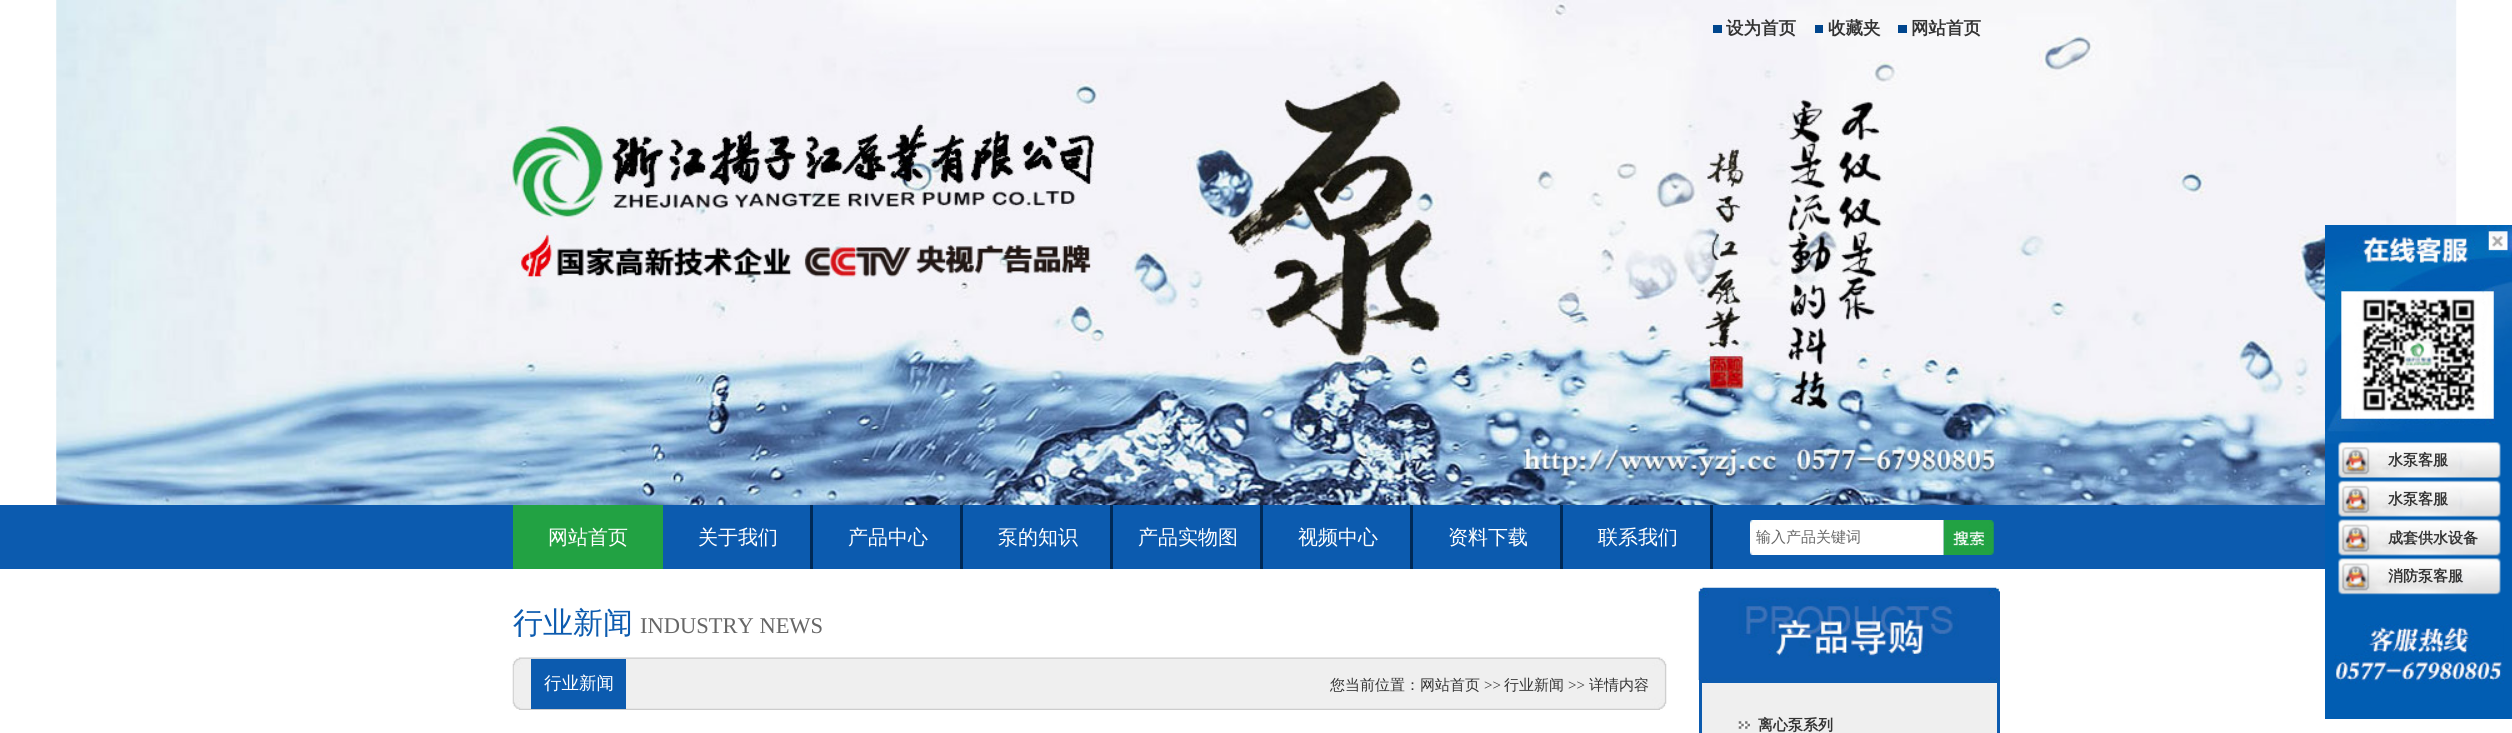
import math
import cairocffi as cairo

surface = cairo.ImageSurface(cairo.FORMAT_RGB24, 2512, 733)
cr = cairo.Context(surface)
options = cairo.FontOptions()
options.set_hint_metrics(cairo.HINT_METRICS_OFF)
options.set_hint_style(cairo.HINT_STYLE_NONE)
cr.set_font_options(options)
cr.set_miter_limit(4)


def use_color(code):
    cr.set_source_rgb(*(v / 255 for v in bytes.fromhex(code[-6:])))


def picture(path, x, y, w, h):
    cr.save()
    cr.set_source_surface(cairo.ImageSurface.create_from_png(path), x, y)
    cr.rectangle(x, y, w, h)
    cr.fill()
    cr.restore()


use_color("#ffffff")
cr.paint()
picture("img1.png", 56, 0, 2401, 505)
use_color("#00468e")
cr.rectangle(1713, 25, 9, 8)
cr.fill()
cr.select_font_face("WenQuanYi Zen Hei", cairo.FONT_SLANT_NORMAL, cairo.FONT_WEIGHT_BOLD)
cr.set_font_size(17.5)
use_color("#333333")
cr.move_to(1726, 34)
cr.show_text("设为首页")
use_color("#00468e")
cr.rectangle(1815, 25, 8, 8)
cr.fill()
use_color("#333333")
cr.move_to(1828, 34)
cr.show_text("收藏夹")
use_color("#00468e")
cr.rectangle(1898, 25, 9, 8)
cr.fill()
use_color("#333333")
cr.move_to(1911, 34)
cr.show_text("网站首页")
use_color("#0c5baf")
cr.rectangle(0, 505, 2325, 64)
cr.fill()
use_color("#22a243")
cr.rectangle(513, 505, 150, 64)
cr.fill()
cr.select_font_face("WenQuanYi Zen Hei Medium")
cr.set_font_size(20)
use_color("#ffffff")
cr.move_to(548, 544)
cr.show_text("网站首页")
use_color("#002956")
cr.rectangle(810, 505, 3, 64)
cr.fill()
use_color("#ffffff")
cr.move_to(698, 544)
cr.show_text("关于我们")
use_color("#002956")
cr.rectangle(960, 505, 3, 64)
cr.fill()
use_color("#ffffff")
cr.move_to(848, 544)
cr.show_text("产品中心")
use_color("#002956")
cr.rectangle(1110, 505, 3, 64)
cr.fill()
use_color("#ffffff")
cr.move_to(998, 544)
cr.show_text("泵的知识")
use_color("#002956")
cr.rectangle(1260, 505, 3, 64)
cr.fill()
use_color("#ffffff")
cr.move_to(1138, 544)
cr.show_text("产品实物图")
use_color("#002956")
cr.rectangle(1410, 505, 3, 64)
cr.fill()
use_color("#ffffff")
cr.move_to(1298, 544)
cr.show_text("视频中心")
use_color("#002956")
cr.rectangle(1560, 505, 3, 64)
cr.fill()
use_color("#ffffff")
cr.move_to(1448, 544)
cr.show_text("资料下载")
use_color("#002956")
cr.rectangle(1710, 505, 3, 64)
cr.fill()
use_color("#ffffff")
cr.move_to(1598, 544)
cr.show_text("联系我们")
picture("img2.png", 1750, 520, 194, 35)
cr.set_font_size(15)
use_color("#666666")
cr.move_to(1756, 542)
cr.show_text("输入产品关键词")
picture("img3.png", 1943, 520, 51, 35)
use_color("#015db2")
cr.rectangle(2325, 443, 187, 276)
cr.fill()
picture("img4.png", 2325, 225, 187, 219)
picture("img5.png", 2338, 442, 163, 36)
cr.select_font_face("WenQuanYi Zen Hei", cairo.FONT_SLANT_NORMAL, cairo.FONT_WEIGHT_BOLD)
use_color("#333333")
cr.move_to(2388, 465)
cr.show_text("水泵客服")
picture("img6.png", 2338, 480, 163, 37)
cr.move_to(2388, 504)
cr.show_text("水泵客服")
picture("img7.png", 2338, 519, 163, 37)
cr.move_to(2388, 543)
cr.show_text("成套供水设备")
picture("img8.png", 2338, 558, 163, 37)
cr.move_to(2388, 581)
cr.show_text("消防泵客服")
picture("img9.png", 2334, 624, 170, 60)
cr.select_font_face("WenQuanYi Zen Hei Medium")
cr.set_font_size(30)
use_color("#0c5baf")
cr.move_to(513, 633)
cr.show_text("行业新闻")
cr.select_font_face("Liberation Serif")
cr.set_font_size(22.5)
use_color("#666666")
cr.move_to(640, 633)
cr.show_text("INDUSTRY NEWS")
picture("img10.png", 512, 657, 1155, 53)
use_color("#0c5baf")
cr.rectangle(531, 659, 95, 50)
cr.fill()
cr.select_font_face("WenQuanYi Zen Hei Medium")
cr.set_font_size(17.5)
use_color("#ffffff")
cr.move_to(544, 689)
cr.show_text("行业新闻")
cr.set_font_size(15)
use_color("#333333")
cr.move_to(1330, 690)
cr.show_text("您当前位置：网站首页")
cr.select_font_face("Liberation Serif")
cr.move_to(1484, 690)
cr.show_text(">>")
cr.select_font_face("WenQuanYi Zen Hei Medium")
cr.move_to(1504, 690)
cr.show_text("行业新闻")
cr.select_font_face("Liberation Serif")
cr.move_to(1568, 690)
cr.show_text(">>")
cr.select_font_face("WenQuanYi Zen Hei Medium")
cr.move_to(1589, 690)
cr.show_text("详情内容")
picture("img11.png", 1698, 587, 302, 93)
use_color("#efefef")
cr.rectangle(1700.5, 681.5, 298, 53)
cr.fill_preserve()
use_color("#0c5baf")
cr.set_line_width(3)
cr.stroke()
picture("img12.png", 1738, 721, 12, 8)
cr.select_font_face("WenQuanYi Zen Hei", cairo.FONT_SLANT_NORMAL, cairo.FONT_WEIGHT_BOLD)
use_color("#333333")
cr.move_to(1758, 730)
cr.show_text("离心泵系列")
surface.write_to_png("result.png")
